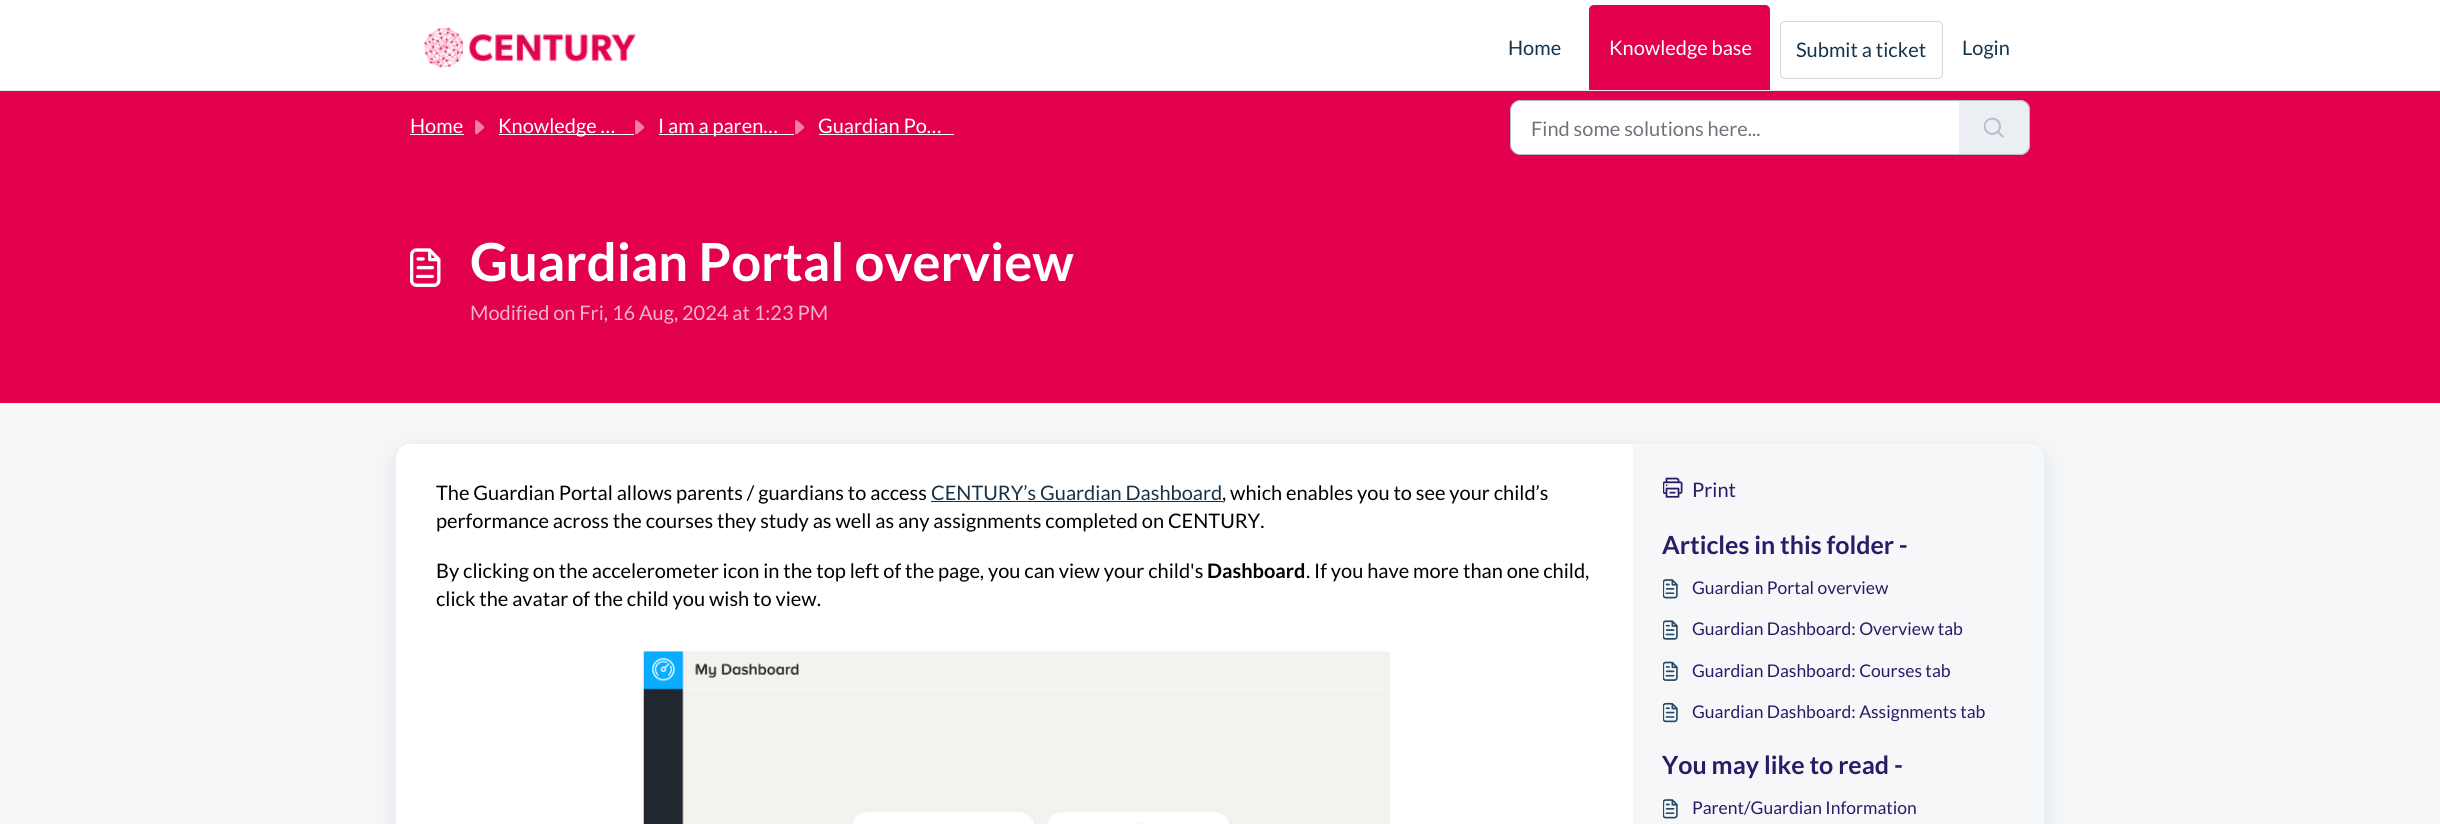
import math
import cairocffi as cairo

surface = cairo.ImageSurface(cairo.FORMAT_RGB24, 2440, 824)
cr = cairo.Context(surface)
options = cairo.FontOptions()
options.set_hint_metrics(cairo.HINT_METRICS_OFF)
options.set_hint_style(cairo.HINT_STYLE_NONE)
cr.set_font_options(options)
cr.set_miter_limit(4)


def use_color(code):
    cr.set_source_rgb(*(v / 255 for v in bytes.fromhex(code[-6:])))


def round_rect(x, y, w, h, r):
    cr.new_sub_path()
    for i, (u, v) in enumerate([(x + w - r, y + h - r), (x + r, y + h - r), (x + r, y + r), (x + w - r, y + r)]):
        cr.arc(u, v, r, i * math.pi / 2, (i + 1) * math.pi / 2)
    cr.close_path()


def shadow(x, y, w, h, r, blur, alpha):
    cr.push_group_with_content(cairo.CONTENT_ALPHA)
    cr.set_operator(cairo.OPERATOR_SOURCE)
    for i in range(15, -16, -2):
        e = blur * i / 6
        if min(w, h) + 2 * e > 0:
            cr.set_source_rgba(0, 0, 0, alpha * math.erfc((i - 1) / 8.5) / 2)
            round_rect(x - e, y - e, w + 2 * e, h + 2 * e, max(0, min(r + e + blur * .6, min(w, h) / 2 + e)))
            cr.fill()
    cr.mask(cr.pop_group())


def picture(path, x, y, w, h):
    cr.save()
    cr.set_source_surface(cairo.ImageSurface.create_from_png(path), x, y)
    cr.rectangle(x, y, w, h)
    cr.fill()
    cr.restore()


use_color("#f5f7f9")
cr.paint()
use_color("#ffffff")
cr.rectangle(0, 0, 2440, 90)
cr.fill()
use_color("#ebeff3")
cr.rectangle(0, 90, 2440, 1)
cr.fill()
picture("img1.png", 424, 27, 212, 41)
cr.select_font_face("Lato")
cr.set_font_size(20)
use_color("#12344d")
cr.move_to(1508, 55)
cr.show_text("Home")
use_color("#e2004f")
cr.new_path()
cr.move_to(1594, 5)
cr.line_to(1765, 5)
cr.curve_to(1768, 5, 1770, 7, 1770, 10)
cr.line_to(1770, 90)
cr.line_to(1589, 90)
cr.line_to(1589, 10)
cr.curve_to(1589, 7, 1591, 5, 1594, 5)
cr.close_path()
cr.fill()
use_color("#ffffff")
cr.move_to(1609, 55)
cr.show_text("Knowledge base")
round_rect(1780.5, 21.5, 162, 57, 4.5)
use_color("#cfd7df")
cr.set_line_width(1)
cr.stroke()
use_color("#12344d")
cr.move_to(1796, 57)
cr.show_text("Submit a ticket")
cr.move_to(1962, 55)
cr.show_text("Login")
use_color("#e2004f")
cr.rectangle(0, 91, 2440, 312)
cr.fill()
use_color("#ffffff")
cr.move_to(410, 133)
cr.show_text("Home")
cr.rectangle(410, 134, 54, 1)
cr.fill()
picture("img2.png", 475, 120, 10, 15)
cr.rectangle(499, 134, 135, 1)
cr.fill()
cr.move_to(498, 133)
cr.show_text("Knowledge …")
picture("img2.png", 635, 120, 10, 15)
cr.rectangle(659, 134, 135, 1)
cr.fill()
cr.move_to(658, 133)
cr.show_text("I am a paren…")
picture("img2.png", 795, 120, 10, 15)
cr.move_to(818, 133)
cr.show_text("Guardian Po…")
cr.rectangle(819, 134, 135, 1)
cr.fill()
cr.new_path()
cr.move_to(1520, 100.5)
cr.line_to(1959.5, 100.5)
cr.line_to(1959.5, 154.5)
cr.line_to(1520, 154.5)
cr.curve_to(1515, 154.5, 1510.5, 150, 1510.5, 145)
cr.line_to(1510.5, 110)
cr.curve_to(1510.5, 105, 1515, 100.5, 1520, 100.5)
cr.close_path()
cr.fill_preserve()
use_color("#b1bdc8")
cr.stroke()
use_color("#6c757d")
cr.move_to(1531, 136)
cr.show_text("Find some solutions here...")
use_color("#ebeff3")
cr.new_path()
cr.move_to(1959, 100)
cr.line_to(2020, 100)
cr.curve_to(2025.5, 100, 2030, 104.5, 2030, 110)
cr.line_to(2030, 145)
cr.curve_to(2030, 150.5, 2025.5, 155, 2020, 155)
cr.line_to(1959, 155)
cr.close_path()
cr.fill()
use_color("#b1bdc8")
cr.set_fill_rule(cairo.FILL_RULE_EVEN_ODD)
cr.new_path()
cr.move_to(1959, 100)
cr.line_to(2020, 100)
cr.curve_to(2026, 100, 2030, 104, 2030, 110)
cr.line_to(2030, 145)
cr.curve_to(2030, 151, 2026, 155, 2020, 155)
cr.line_to(1959, 155)
cr.close_path()
cr.move_to(1959, 101)
cr.line_to(2020, 101)
cr.curve_to(2025, 101, 2029, 105, 2029, 110)
cr.line_to(2029, 145)
cr.curve_to(2029, 150, 2025, 154, 2020, 154)
cr.line_to(1959, 154)
cr.close_path()
cr.fill()
picture("img3.png", 1983, 117, 21, 21)
picture("img4.png", 410, 248, 31, 39)
cr.select_font_face("Lato", cairo.FONT_SLANT_NORMAL, cairo.FONT_WEIGHT_BOLD)
cr.set_font_size(52.5)
use_color("#ffffff")
cr.move_to(470, 281)
cr.show_text("Guardian Portal overview")
cr.select_font_face("Lato")
cr.set_font_size(20)
use_color("#f6b3ca")
cr.move_to(470, 320)
cr.show_text("Modified on Fri, 16 Aug, 2024 at 1:23 PM")
use_color("#27313a")
shadow(395, 450, 1650, 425, 15, 12, 0.1)
use_color("#ffffff")
round_rect(395.5, 443.5, 1649, 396, 14.5)
cr.fill_preserve()
use_color("#ebeff3")
cr.stroke()
use_color("#000000")
cr.move_to(436, 500)
cr.show_text("The Guardian Portal allows parents / guardians to access")
use_color("#183247")
cr.move_to(931, 500)
cr.show_text("CENTURY’s Guardian Dashboard")
use_color("#000000")
cr.move_to(1222, 500)
cr.show_text(", which enables you to see your child’s")
use_color("#183247")
cr.rectangle(931, 501, 292, 1)
cr.fill()
use_color("#000000")
cr.move_to(436, 528)
cr.show_text("performance across the courses they study as well as any assignments completed on CENTURY.")
cr.move_to(436, 578)
cr.show_text("By clicking on the accelerometer icon in the top left of the page, you can view your child's")
cr.select_font_face("Lato", cairo.FONT_SLANT_NORMAL, cairo.FONT_WEIGHT_BOLD)
cr.move_to(1207, 578)
cr.show_text("Dashboard")
cr.select_font_face("Lato")
cr.move_to(1306, 578)
cr.show_text(". If you have more than one child,")
cr.move_to(436, 606)
cr.show_text("click the avatar of the child you wish to view.")
picture("img5.png", 643, 651, 747, 173)
use_color("#f5f7f9")
cr.new_path()
cr.move_to(1633, 444)
cr.line_to(2029, 444)
cr.curve_to(2037.5, 444, 2044, 450.5, 2044, 459)
cr.line_to(2044, 824)
cr.curve_to(2044, 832.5, 2037.5, 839, 2029, 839)
cr.line_to(1633, 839)
cr.close_path()
cr.fill()
picture("img6.png", 1663, 477, 20, 21)
use_color("#271d67")
cr.move_to(1692, 497)
cr.show_text("Print")
cr.select_font_face("Lato", cairo.FONT_SLANT_NORMAL, cairo.FONT_WEIGHT_BOLD)
cr.set_font_size(25)
cr.move_to(1662, 554)
cr.show_text("Articles in this folder -")
picture("img7.png", 1663, 579, 15, 20)
cr.select_font_face("Lato")
cr.set_font_size(17.5)
cr.move_to(1692, 594)
cr.show_text("Guardian Portal overview")
picture("img8.png", 1663, 620, 15, 20)
cr.move_to(1692, 635)
cr.show_text("Guardian Dashboard: Overview tab")
picture("img9.png", 1663, 661, 15, 20)
cr.move_to(1692, 677)
cr.show_text("Guardian Dashboard: Courses tab")
picture("img10.png", 1663, 702, 15, 21)
cr.move_to(1692, 718)
cr.show_text("Guardian Dashboard: Assignments tab")
cr.select_font_face("Lato", cairo.FONT_SLANT_NORMAL, cairo.FONT_WEIGHT_BOLD)
cr.set_font_size(25)
cr.move_to(1662, 774)
cr.show_text("You may like to read -")
picture("img7.png", 1663, 799, 15, 20)
cr.select_font_face("Lato")
cr.set_font_size(17.5)
cr.move_to(1692, 814)
cr.show_text("Parent/Guardian Information")
surface.write_to_png("result.png")
